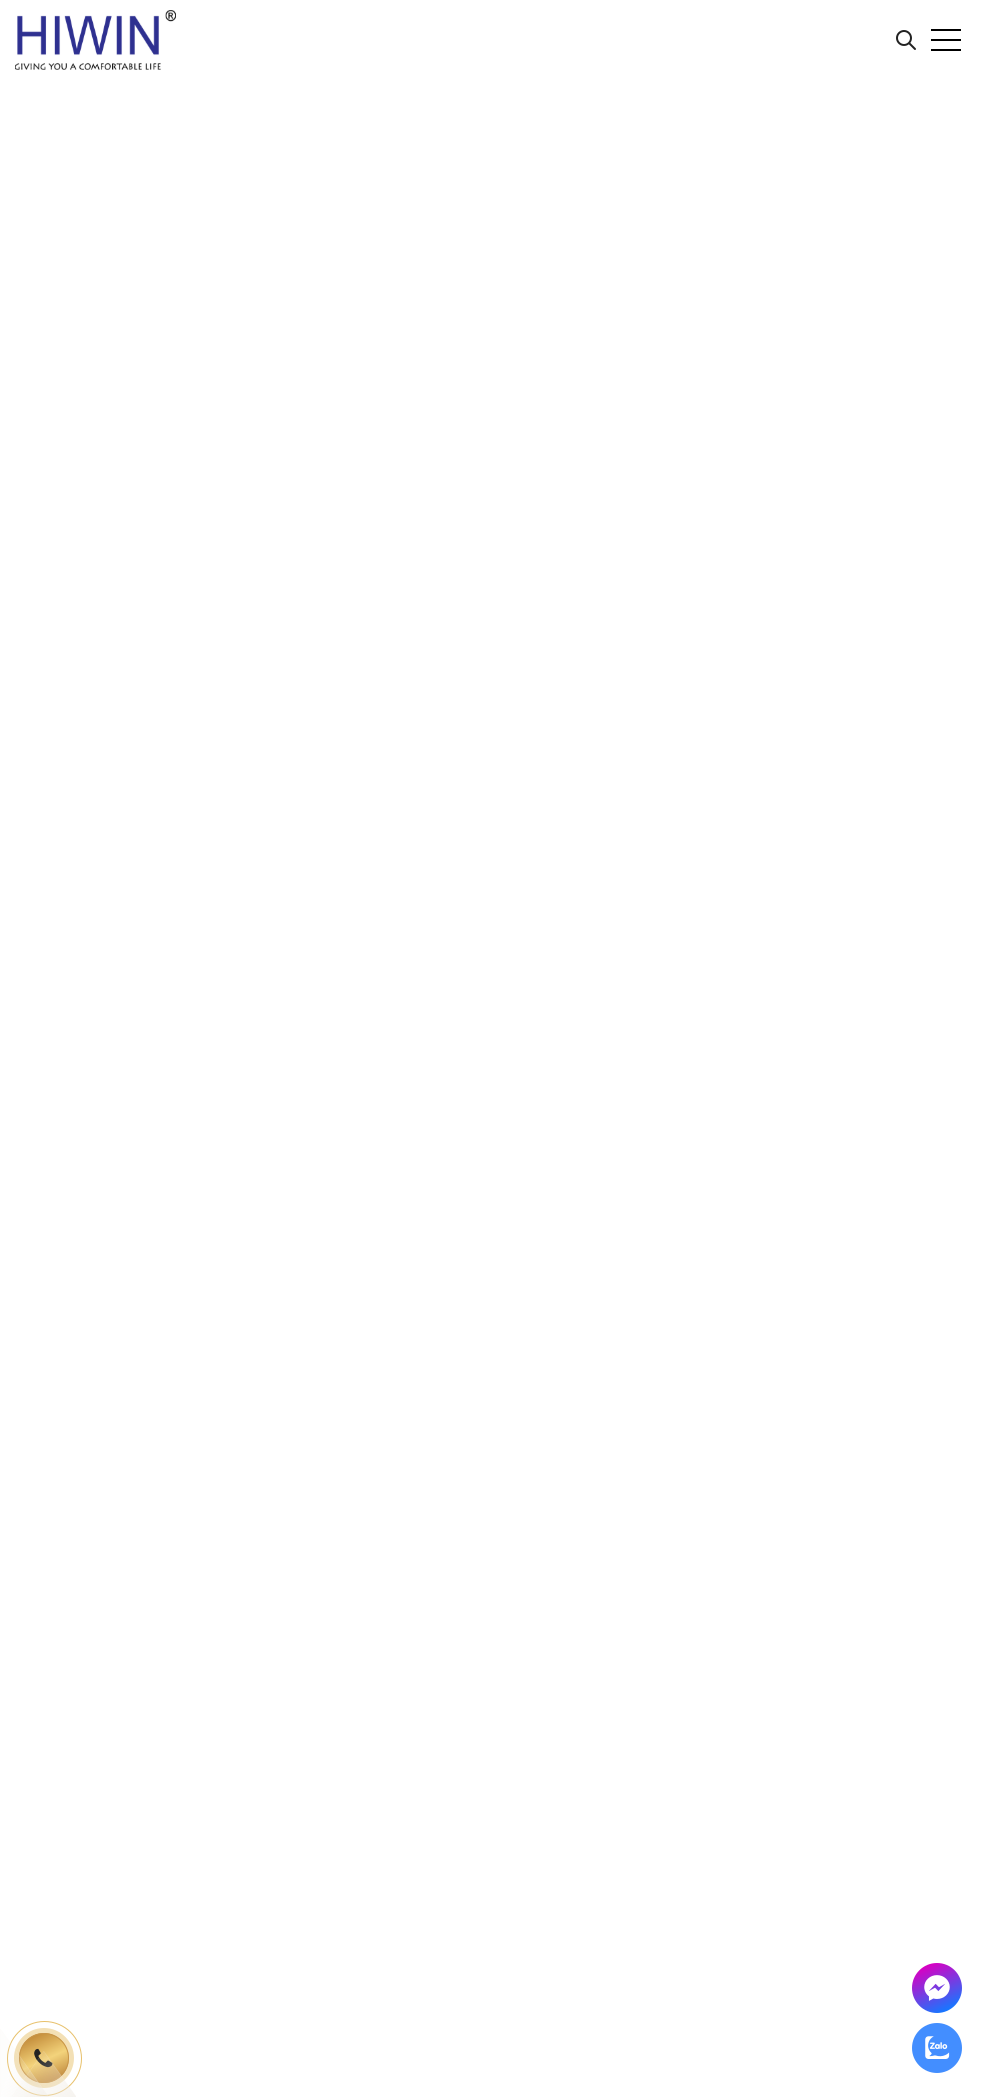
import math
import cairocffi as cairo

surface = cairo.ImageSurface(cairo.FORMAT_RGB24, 981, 2097)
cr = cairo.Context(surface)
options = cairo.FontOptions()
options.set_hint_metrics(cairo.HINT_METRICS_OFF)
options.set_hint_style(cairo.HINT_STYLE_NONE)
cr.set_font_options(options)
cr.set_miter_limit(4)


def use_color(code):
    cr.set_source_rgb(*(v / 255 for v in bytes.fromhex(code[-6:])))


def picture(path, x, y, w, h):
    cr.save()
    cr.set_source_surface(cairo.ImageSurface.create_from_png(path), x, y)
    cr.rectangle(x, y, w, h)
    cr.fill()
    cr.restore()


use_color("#ffffff")
cr.paint()
picture("img1.png", 15, 10, 161, 60)
picture("img2.png", 896, 30, 20, 20)
use_color("#000000")
cr.rectangle(931, 29, 30, 2)
cr.fill()
cr.rectangle(931, 39, 30, 2)
cr.fill()
cr.rectangle(931, 49, 30, 2)
cr.fill()
use_color("#f3e0b5")
cr.arc(44, 2058, 30, 0, 2 * math.pi)
cr.fill()
picture("img4.png", 19, 2033, 50, 50)
cr.arc(44.5, 2058.5, 37, 0, 2 * math.pi)
use_color("#e7c06a")
cr.set_line_width(1)
cr.stroke()
picture("img3.png", 0, 2029, 76, 68)
picture("img5.png", 912, 1963, 50, 50)
picture("img6.png", 912, 2023, 50, 50)
surface.write_to_png("result.png")
